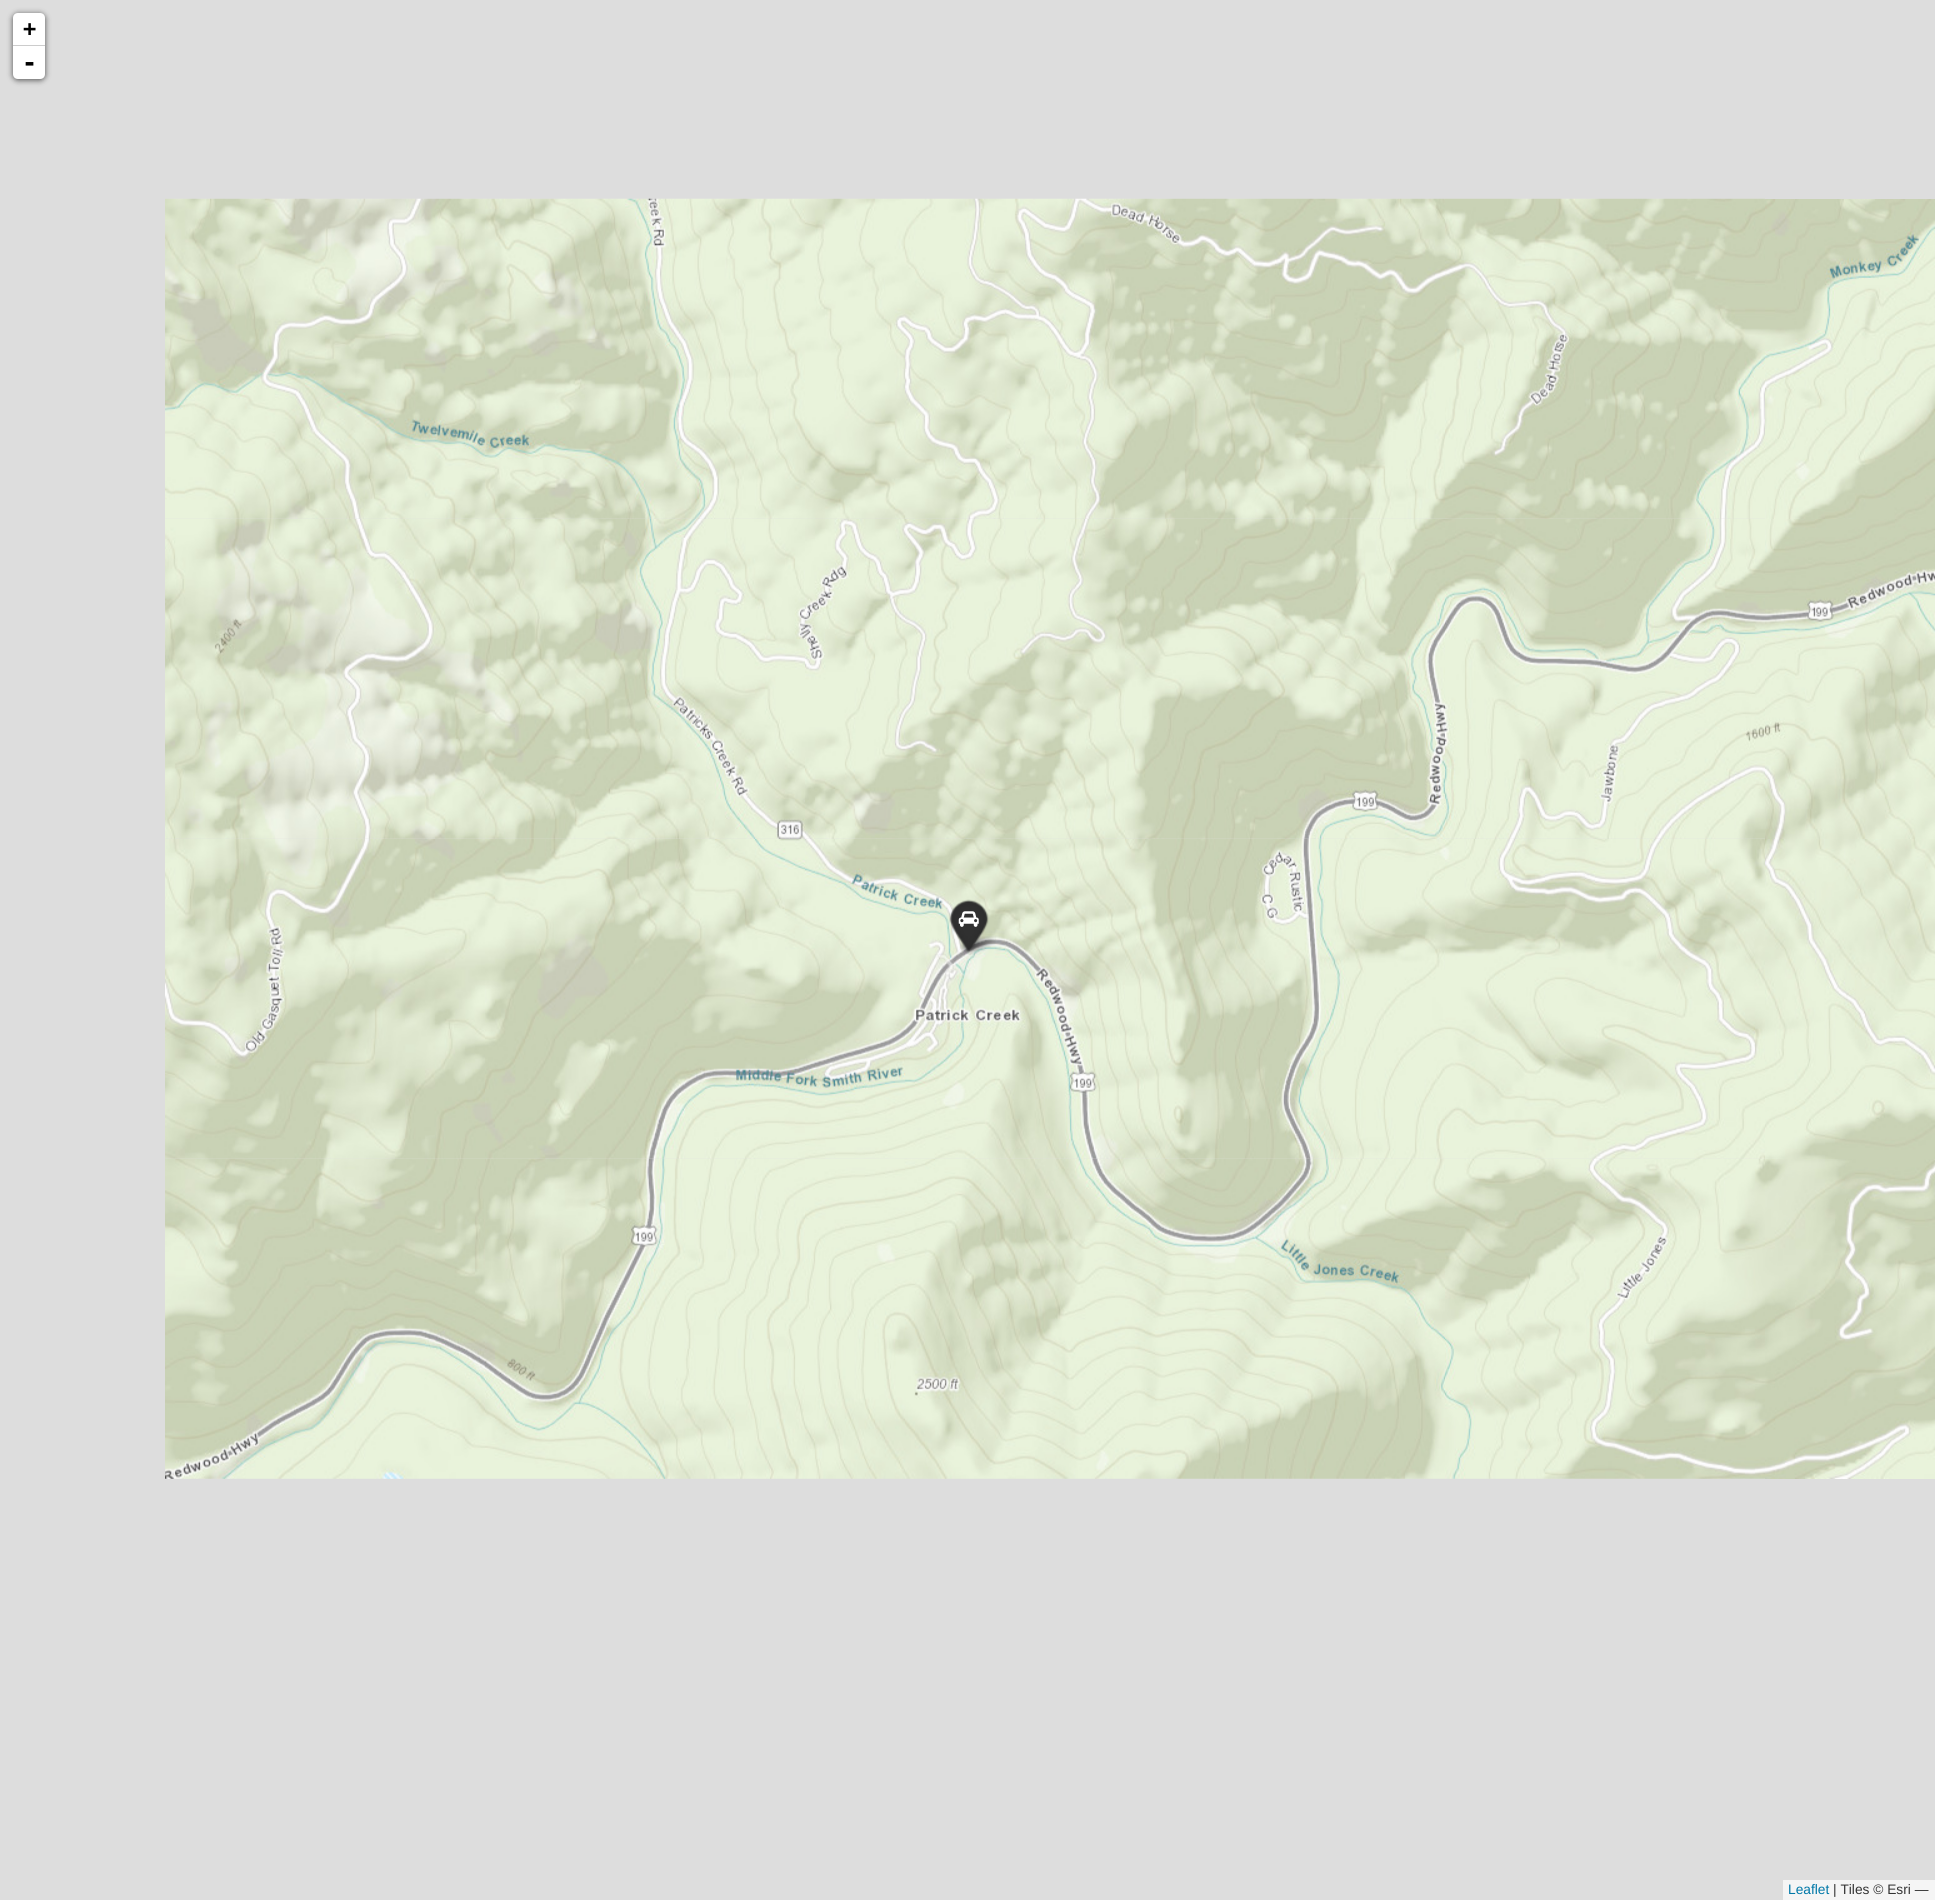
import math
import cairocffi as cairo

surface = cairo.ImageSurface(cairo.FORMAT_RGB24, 1935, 1900)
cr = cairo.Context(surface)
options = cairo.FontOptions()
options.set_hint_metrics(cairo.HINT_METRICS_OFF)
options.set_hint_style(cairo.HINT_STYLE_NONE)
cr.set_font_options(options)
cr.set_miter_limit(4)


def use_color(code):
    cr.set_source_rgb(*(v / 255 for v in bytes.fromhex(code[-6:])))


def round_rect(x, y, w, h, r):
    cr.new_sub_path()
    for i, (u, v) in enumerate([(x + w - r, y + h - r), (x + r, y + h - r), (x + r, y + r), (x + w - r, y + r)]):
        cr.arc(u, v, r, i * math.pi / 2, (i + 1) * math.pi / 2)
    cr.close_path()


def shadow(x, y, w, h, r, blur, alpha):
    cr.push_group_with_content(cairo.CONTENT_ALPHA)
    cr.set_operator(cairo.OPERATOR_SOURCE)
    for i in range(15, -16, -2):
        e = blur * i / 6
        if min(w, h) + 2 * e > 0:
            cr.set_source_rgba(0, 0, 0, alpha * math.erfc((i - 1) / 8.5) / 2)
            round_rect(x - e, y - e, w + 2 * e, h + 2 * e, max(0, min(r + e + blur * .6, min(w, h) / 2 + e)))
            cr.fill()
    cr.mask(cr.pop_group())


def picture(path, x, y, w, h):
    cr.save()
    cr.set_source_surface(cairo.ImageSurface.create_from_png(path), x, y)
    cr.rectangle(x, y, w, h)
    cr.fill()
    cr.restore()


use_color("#dddddd")
cr.paint()
use_color("#000000")
shadow(13, 14, 32, 66, 5, 3, 0.65)
use_color("#ffffff")
cr.new_path()
cr.move_to(18, 13)
cr.line_to(40, 13)
cr.curve_to(43, 13, 45, 15, 45, 18)
cr.line_to(45, 46)
cr.line_to(13, 46)
cr.line_to(13, 18)
cr.curve_to(13, 15, 15, 13, 18, 13)
cr.close_path()
cr.fill()
use_color("#cccccc")
cr.rectangle(13, 45, 32, 1)
cr.fill()
cr.select_font_face("DejaVu Sans Mono", cairo.FONT_SLANT_NORMAL, cairo.FONT_WEIGHT_BOLD)
cr.set_font_size(22)
use_color("#000000")
cr.move_to(23, 36)
cr.show_text("+")
use_color("#ffffff")
cr.new_path()
cr.move_to(13, 46)
cr.line_to(45, 46)
cr.line_to(45, 74)
cr.curve_to(45, 77, 43, 79, 40, 79)
cr.line_to(18, 79)
cr.curve_to(15, 79, 13, 77, 13, 74)
cr.close_path()
cr.fill()
cr.set_font_size(25)
use_color("#000000")
cr.move_to(22, 71)
cr.show_text("-")
use_color("#f5f5f5")
cr.rectangle(1783, 1880, 152, 20)
cr.fill()
cr.select_font_face("Liberation Sans")
cr.set_font_size(13.75)
use_color("#0078a8")
cr.move_to(1788, 1894)
cr.show_text("Leaflet")
use_color("#333333")
cr.move_to(1833, 1894)
cr.show_text("| Tiles © Esri —")
picture("img13.png", 165, 838, 320, 321)
picture("img7.png", 165, 518, 320, 321)
picture("img1.png", 165, 198, 320, 321)
picture("img14.png", 485, 838, 320, 321)
picture("img8.png", 485, 518, 320, 321)
picture("img2.png", 485, 198, 320, 321)
picture("img15.png", 805, 838, 320, 321)
picture("img9.png", 805, 518, 320, 321)
picture("img3.png", 805, 198, 320, 321)
picture("img16.png", 1125, 838, 320, 321)
picture("img10.png", 1125, 518, 320, 321)
picture("img4.png", 1125, 198, 320, 321)
picture("img17.png", 1445, 838, 320, 321)
picture("img11.png", 1445, 518, 320, 321)
picture("img5.png", 1445, 198, 320, 321)
picture("img6.png", 1765, 199, 170, 320)
picture("img12.png", 1765, 519, 170, 320)
picture("img18.png", 1765, 839, 170, 320)
picture("img19.png", 165, 1158, 320, 321)
picture("img20.png", 485, 1158, 320, 321)
picture("img21.png", 805, 1158, 320, 321)
picture("img22.png", 1125, 1158, 320, 321)
picture("img23.png", 1445, 1158, 320, 321)
picture("img24.png", 1765, 1159, 170, 320)
picture("img27.png", 959, 936, 37, 19)
picture("img25.png", 949, 899, 40, 53)
picture("img26.png", 958, 911, 21, 16)
surface.write_to_png("result.png")
